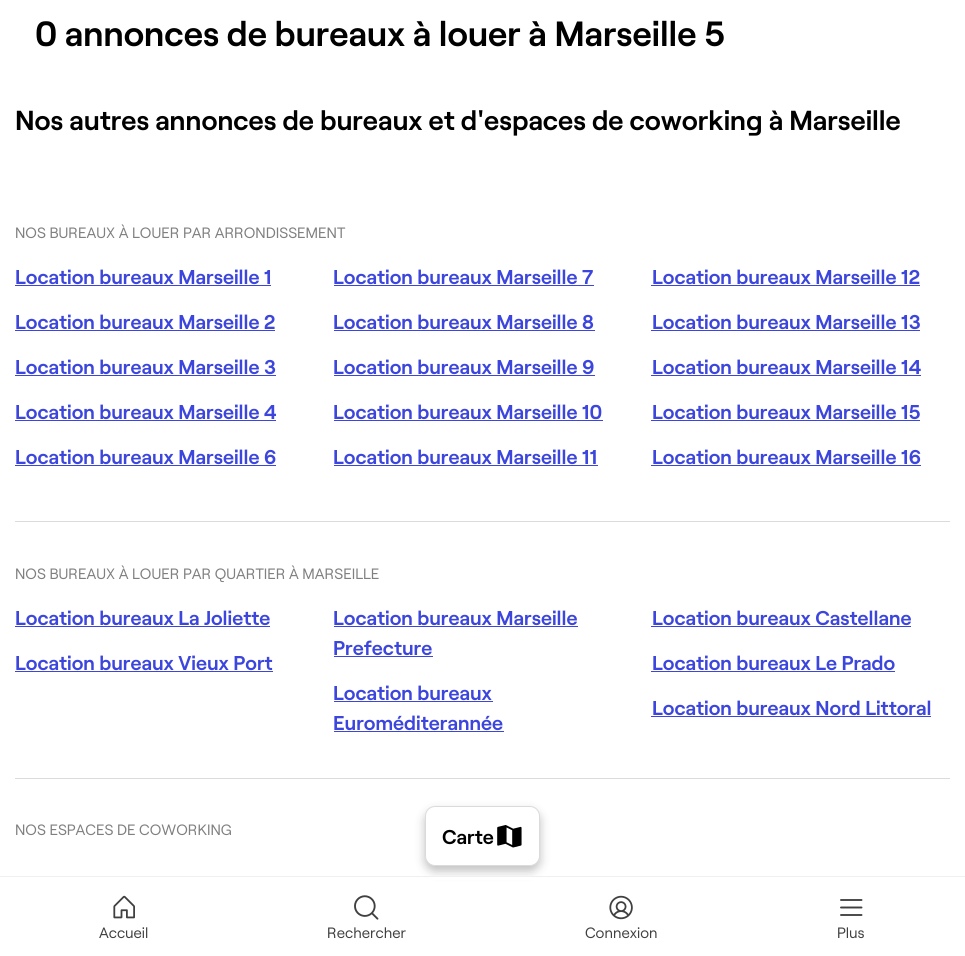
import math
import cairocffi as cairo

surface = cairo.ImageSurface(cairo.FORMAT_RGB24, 965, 956)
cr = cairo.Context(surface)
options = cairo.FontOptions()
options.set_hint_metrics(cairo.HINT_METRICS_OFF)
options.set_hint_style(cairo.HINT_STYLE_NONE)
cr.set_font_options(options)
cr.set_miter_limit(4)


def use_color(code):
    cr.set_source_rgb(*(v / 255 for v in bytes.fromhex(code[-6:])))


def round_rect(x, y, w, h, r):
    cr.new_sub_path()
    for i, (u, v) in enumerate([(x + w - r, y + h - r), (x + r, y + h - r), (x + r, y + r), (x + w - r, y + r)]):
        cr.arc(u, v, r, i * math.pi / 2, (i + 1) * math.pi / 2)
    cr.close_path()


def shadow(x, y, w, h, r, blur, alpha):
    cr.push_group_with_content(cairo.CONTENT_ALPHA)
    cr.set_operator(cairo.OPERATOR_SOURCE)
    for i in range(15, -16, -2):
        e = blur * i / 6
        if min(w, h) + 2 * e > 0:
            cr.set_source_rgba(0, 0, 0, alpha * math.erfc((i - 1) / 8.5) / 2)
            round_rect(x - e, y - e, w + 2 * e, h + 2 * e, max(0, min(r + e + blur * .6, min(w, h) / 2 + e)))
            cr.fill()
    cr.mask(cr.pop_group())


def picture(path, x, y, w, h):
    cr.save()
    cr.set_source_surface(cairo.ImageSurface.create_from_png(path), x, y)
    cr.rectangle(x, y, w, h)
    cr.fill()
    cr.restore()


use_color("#ffffff")
cr.paint()
cr.select_font_face("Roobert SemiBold")
cr.set_font_size(35)
use_color("#000000")
cr.move_to(35, 46)
cr.show_text("0 annonces de bureaux à louer à Marseille 5")
cr.set_font_size(27.5)
cr.move_to(15, 130)
cr.show_text("Nos autres annonces de bureaux et d'espaces de coworking à Marseille")
cr.select_font_face("Roobert")
cr.set_font_size(15)
use_color("#808080")
cr.move_to(15, 238)
cr.show_text("NOS BUREAUX À LOUER PAR ARRONDISSEMENT")
use_color("#dbdbdb")
cr.rectangle(15, 521, 935, 1)
cr.fill()
cr.select_font_face("Roobert SemiBold")
cr.set_font_size(20)
use_color("#3c46dc")
cr.move_to(15, 284)
cr.show_text("Location bureaux Marseille 1")
cr.rectangle(15, 285, 256, 1)
cr.fill()
cr.move_to(333, 284)
cr.show_text("Location bureaux Marseille 7")
cr.rectangle(334, 285, 260, 1)
cr.fill()
cr.move_to(652, 284)
cr.show_text("Location bureaux Marseille 12")
cr.rectangle(651, 285, 269, 1)
cr.fill()
cr.move_to(15, 329)
cr.show_text("Location bureaux Marseille 2")
cr.rectangle(15, 330, 260, 1)
cr.fill()
cr.move_to(333, 329)
cr.show_text("Location bureaux Marseille 8")
cr.rectangle(334, 330, 261, 1)
cr.fill()
cr.move_to(652, 329)
cr.show_text("Location bureaux Marseille 13")
cr.rectangle(651, 330, 269, 1)
cr.fill()
cr.move_to(15, 374)
cr.show_text("Location bureaux Marseille 3")
cr.rectangle(15, 375, 261, 1)
cr.fill()
cr.move_to(333, 374)
cr.show_text("Location bureaux Marseille 9")
cr.rectangle(334, 375, 261, 1)
cr.fill()
cr.move_to(652, 374)
cr.show_text("Location bureaux Marseille 14")
cr.rectangle(651, 375, 270, 1)
cr.fill()
cr.move_to(15, 419)
cr.show_text("Location bureaux Marseille 4")
cr.rectangle(15, 420, 261, 1)
cr.fill()
cr.move_to(333, 419)
cr.show_text("Location bureaux Marseille 10")
cr.rectangle(334, 420, 269, 1)
cr.fill()
cr.move_to(652, 419)
cr.show_text("Location bureaux Marseille 15")
cr.rectangle(651, 420, 269, 1)
cr.fill()
cr.move_to(15, 464)
cr.show_text("Location bureaux Marseille 6")
cr.rectangle(15, 465, 261, 1)
cr.fill()
cr.move_to(333, 464)
cr.show_text("Location bureaux Marseille 11")
cr.rectangle(334, 465, 264, 1)
cr.fill()
cr.move_to(652, 464)
cr.show_text("Location bureaux Marseille 16")
cr.rectangle(651, 465, 270, 1)
cr.fill()
cr.select_font_face("Roobert")
cr.set_font_size(15)
use_color("#808080")
cr.move_to(15, 579)
cr.show_text("NOS BUREAUX À LOUER PAR QUARTIER À MARSEILLE")
use_color("#dbdbdb")
cr.rectangle(15, 778, 935, 1)
cr.fill()
cr.select_font_face("Roobert SemiBold")
cr.set_font_size(20)
use_color("#3c46dc")
cr.move_to(15, 625)
cr.show_text("Location bureaux La Joliette")
cr.rectangle(15, 626, 255, 1)
cr.fill()
cr.move_to(333, 625)
cr.show_text("Location bureaux Marseille")
cr.rectangle(334, 626, 244, 1)
cr.fill()
cr.move_to(333, 655)
cr.show_text("Prefecture")
cr.rectangle(334, 656, 99, 1)
cr.fill()
cr.move_to(652, 625)
cr.show_text("Location bureaux Castellane")
cr.rectangle(651, 626, 260, 1)
cr.fill()
cr.move_to(15, 670)
cr.show_text("Location bureaux Vieux Port")
cr.rectangle(15, 671, 258, 1)
cr.fill()
cr.move_to(652, 670)
cr.show_text("Location bureaux Le Prado")
cr.rectangle(651, 671, 244, 1)
cr.fill()
cr.move_to(333, 700)
cr.show_text("Location bureaux")
cr.rectangle(334, 701, 159, 1)
cr.fill()
cr.move_to(333, 730)
cr.show_text("Euroméditerannée")
cr.rectangle(334, 731, 170, 1)
cr.fill()
cr.move_to(652, 715)
cr.show_text("Location bureaux Nord Littoral")
cr.rectangle(651, 716, 280, 1)
cr.fill()
cr.select_font_face("Roobert")
cr.set_font_size(15)
use_color("#808080")
cr.move_to(15, 835)
cr.show_text("NOS ESPACES DE COWORKING")
use_color("#000000")
shadow(425, 811, 115, 60, 10, 5, 0.25)
use_color("#ffffff")
round_rect(425.5, 806.5, 114, 59, 9.5)
cr.fill_preserve()
use_color("#dbdbdb")
cr.set_line_width(1)
cr.stroke()
cr.select_font_face("Roobert SemiBold")
cr.set_font_size(20)
use_color("#000000")
cr.move_to(442, 844)
cr.show_text("Carte")
picture("img1.png", 497, 825, 25, 23)
use_color("#ffffff")
cr.rectangle(428, 877, 109, 3)
cr.fill()
use_color("#f0f0f0")
cr.rectangle(0, 876, 965, 1)
cr.fill()
picture("img2.png", 113, 895, 22, 24)
cr.select_font_face("Roobert")
cr.set_font_size(15)
use_color("#404040")
cr.move_to(99, 938)
cr.show_text("Accueil")
picture("img3.png", 354, 895, 25, 25)
cr.move_to(327, 938)
cr.show_text("Rechercher")
picture("img4.png", 609, 895, 24, 25)
cr.move_to(585, 938)
cr.show_text("Connexion")
picture("img5.png", 840, 899, 23, 17)
cr.move_to(837, 938)
cr.show_text("Plus")
surface.write_to_png("result.png")
